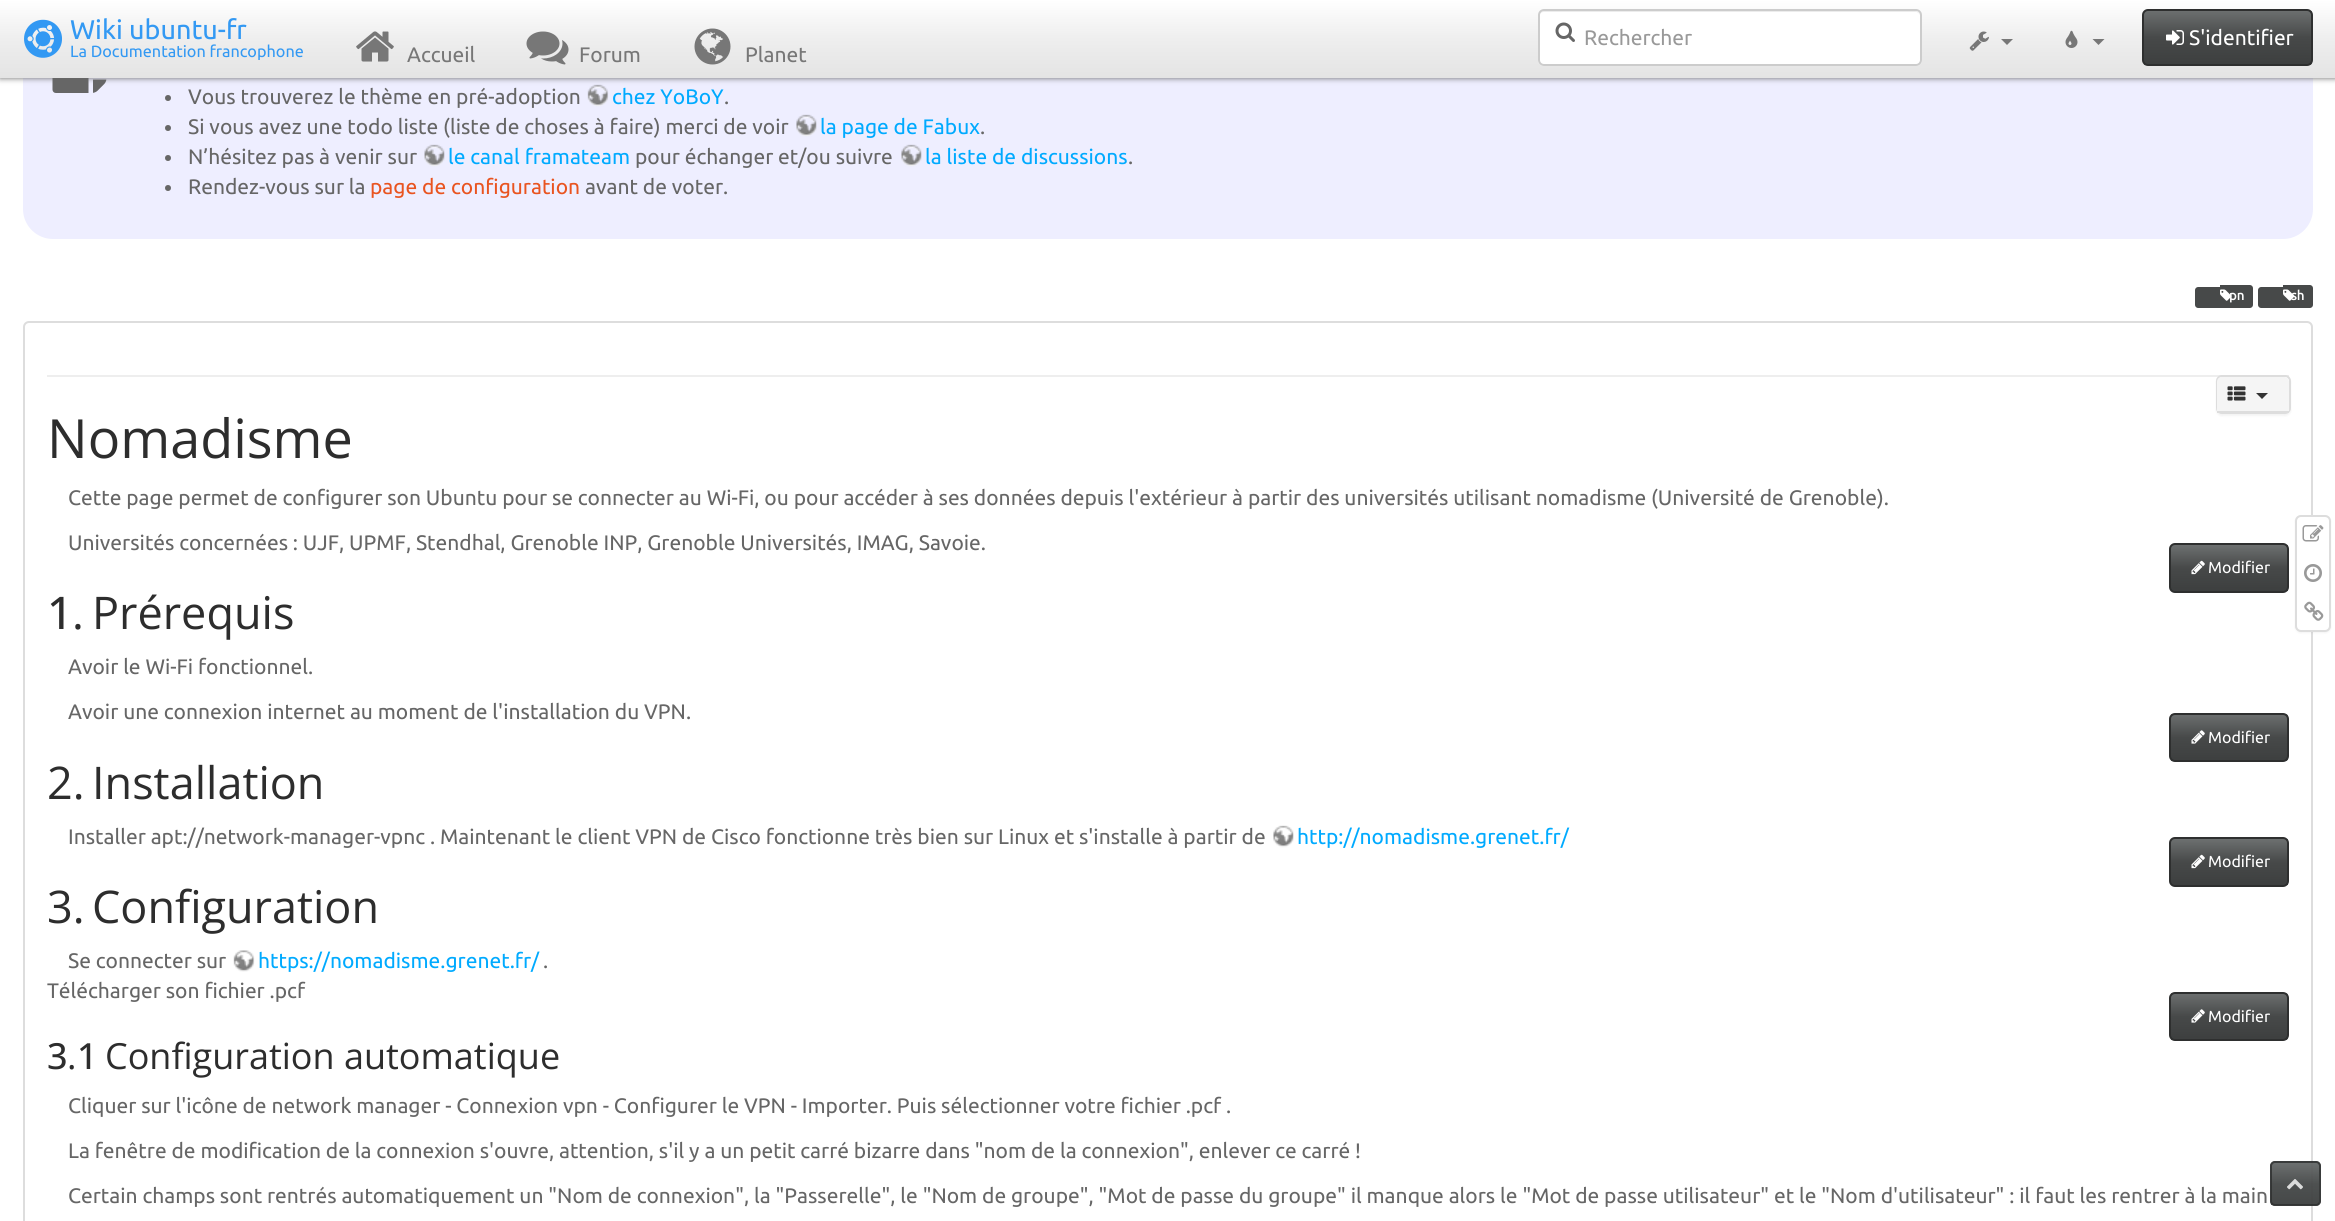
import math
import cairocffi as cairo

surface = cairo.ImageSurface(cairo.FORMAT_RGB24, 2335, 1221)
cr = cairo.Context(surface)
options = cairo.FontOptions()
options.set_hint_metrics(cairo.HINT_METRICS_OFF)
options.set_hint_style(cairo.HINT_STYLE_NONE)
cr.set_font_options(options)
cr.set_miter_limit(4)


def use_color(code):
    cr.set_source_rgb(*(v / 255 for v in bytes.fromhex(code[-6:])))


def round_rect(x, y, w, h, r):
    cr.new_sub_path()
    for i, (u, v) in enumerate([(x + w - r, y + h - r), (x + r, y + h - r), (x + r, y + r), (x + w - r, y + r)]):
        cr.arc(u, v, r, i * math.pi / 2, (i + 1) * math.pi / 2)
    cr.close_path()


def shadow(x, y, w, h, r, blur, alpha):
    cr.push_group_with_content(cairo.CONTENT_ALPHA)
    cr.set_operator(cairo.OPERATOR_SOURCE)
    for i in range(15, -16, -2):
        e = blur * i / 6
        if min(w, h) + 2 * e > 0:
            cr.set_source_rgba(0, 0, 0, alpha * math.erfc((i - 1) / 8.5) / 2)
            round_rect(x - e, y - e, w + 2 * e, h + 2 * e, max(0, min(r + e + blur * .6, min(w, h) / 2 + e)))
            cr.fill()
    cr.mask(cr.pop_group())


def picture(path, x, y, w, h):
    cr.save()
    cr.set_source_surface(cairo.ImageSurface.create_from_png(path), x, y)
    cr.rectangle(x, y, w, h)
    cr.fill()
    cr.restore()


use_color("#ffffff")
cr.paint()
use_color("#eeeeff")
round_rect(23, 29, 2290, 210, 30)
cr.fill()
picture("img9.png", 52, 78, 55, 15)
picture("img10.png", 587, 84, 22, 23)
use_color("#666666")
shadow(0, 0, 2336, 78, 0, 3, 1)
gradient = cairo.LinearGradient(1168, 0, 1168, 78)
gradient.add_color_stop_rgba(0, 1, 1, 1, 1)
gradient.add_color_stop_rgba(0.5, 0.933, 0.933, 0.933, 1)
gradient.add_color_stop_rgba(1, 0.894, 0.894, 0.894, 1)
cr.set_source(gradient)
cr.rectangle(0, 0, 2335, 78)
cr.fill()
picture("img1.png", 24, 19, 38, 39)
cr.select_font_face("Ubuntu")
cr.set_font_size(27)
use_color("#3399f3")
cr.move_to(70, 39)
cr.show_text("Wiki ubuntu-fr")
cr.set_font_size(16.25)
cr.move_to(70, 57)
cr.show_text("La Documentation francophone")
use_color("#ffffff")
round_rect(1538, 9, 384, 57, 6)
cr.fill()
use_color("#ececec")
cr.new_path()
cr.move_to(1544, 12)
cr.line_to(1916, 12)
cr.curve_to(1918, 12, 1920, 14, 1920, 16)
cr.curve_to(1920, 13, 1918, 11, 1915, 11)
cr.line_to(1544, 11)
cr.curve_to(1541, 11, 1539, 13, 1539, 16)
cr.curve_to(1539, 14, 1541, 12, 1544, 12)
cr.close_path()
cr.fill()
round_rect(1539, 10, 382, 55, 5)
use_color("#cccccc")
cr.stroke()
picture("img2.png", 1555, 22, 20, 20)
cr.set_font_size(21)
use_color("#999999")
cr.move_to(1584, 45)
cr.show_text("Rechercher")
picture("img3.png", 1969, 31, 20, 20)
use_color("#777777")
cr.new_path()
cr.move_to(2001, 39)
cr.line_to(2013, 39)
cr.line_to(2007, 45)
cr.close_path()
cr.fill()
picture("img4.png", 2065, 30, 13, 18)
cr.new_path()
cr.move_to(2092.5, 39)
cr.line_to(2104.5, 39)
cr.line_to(2098.5, 45)
cr.close_path()
cr.fill()
cr.save()
round_rect(2142, 9, 171, 57, 6)
cr.clip()
gradient = cairo.LinearGradient(2228, 10, 2228, 65)
gradient.add_color_stop_rgba(0, 0.427, 0.439, 0.439, 1)
gradient.add_color_stop_rgba(0.5, 0.278, 0.286, 0.286, 1)
gradient.add_color_stop_rgba(1, 0.239, 0.247, 0.247, 1)
cr.set_source(gradient)
cr.rectangle(2144, 11, 168, 54)
cr.fill()
cr.restore()
round_rect(2143, 10, 169, 55, 5)
use_color("#2e2f2f")
cr.stroke()
picture("img5.png", 2166, 30, 18, 15)
use_color("#ffffff")
cr.move_to(2189, 45)
cr.show_text("S'identifier")
picture("img6.png", 356, 31, 38, 31)
use_color("#777777")
cr.move_to(407, 62)
cr.show_text("Accueil")
picture("img7.png", 526, 31, 43, 34)
cr.move_to(579, 62)
cr.show_text("Forum")
picture("img8.png", 694, 28, 37, 37)
cr.move_to(745, 62)
cr.show_text("Planet")
use_color("#666666")
cr.new_path()
cr.arc(168, 98, 3, 0, 2 * math.pi)
cr.fill()
cr.move_to(188, 104)
cr.show_text("Vous trouverez le thème en pré-adoption")
use_color("#00aaff")
cr.move_to(612, 104)
cr.show_text("chez YoBoY")
use_color("#666666")
cr.move_to(724, 104)
cr.show_text(".")
cr.new_path()
cr.arc(168, 128, 3, 0, 2 * math.pi)
cr.fill()
cr.move_to(188, 134)
cr.show_text("Si vous avez une todo liste (liste de choses à faire) merci de voir")
picture("img11.png", 796, 114, 21, 23)
use_color("#00aaff")
cr.move_to(820, 134)
cr.show_text("la page de Fabux")
use_color("#666666")
cr.move_to(980, 134)
cr.show_text(".")
cr.new_path()
cr.arc(168, 158, 3, 0, 2 * math.pi)
cr.fill()
cr.move_to(188, 164)
cr.show_text("N’hésitez pas à venir sur")
picture("img12.png", 424, 144, 21, 23)
use_color("#00aaff")
cr.move_to(448, 164)
cr.show_text("le canal framateam")
use_color("#666666")
cr.move_to(635, 164)
cr.show_text("pour échanger et/ou suivre")
picture("img11.png", 901, 144, 21, 23)
use_color("#00aaff")
cr.move_to(925, 164)
cr.show_text("la liste de discussions")
use_color("#666666")
cr.move_to(1128, 164)
cr.show_text(".")
cr.new_path()
cr.arc(168, 188, 3, 0, 2 * math.pi)
cr.fill()
cr.move_to(188, 194)
cr.show_text("Rendez-vous sur la")
use_color("#e95420")
cr.move_to(370, 194)
cr.show_text("page de configuration")
use_color("#666666")
cr.move_to(585, 194)
cr.show_text("avant de voter.")
use_color("#474949")
cr.new_path()
cr.move_to(2198, 287)
cr.line_to(2220, 287)
cr.line_to(2220, 308)
cr.line_to(2198, 308)
cr.curve_to(2196.5, 308, 2195, 306.5, 2195, 305)
cr.line_to(2195, 290)
cr.curve_to(2195, 288.5, 2196.5, 287, 2198, 287)
cr.close_path()
cr.fill()
cr.rectangle(2220, 285, 3, 23)
cr.fill()
cr.new_path()
cr.move_to(2223, 285)
cr.line_to(2250, 285)
cr.curve_to(2251.5, 285, 2253, 286.5, 2253, 288)
cr.line_to(2253, 305)
cr.curve_to(2253, 306.5, 2251.5, 308, 2250, 308)
cr.line_to(2223, 308)
cr.close_path()
cr.fill()
picture("img13.png", 2220, 289, 12, 12)
cr.select_font_face("Ubuntu", cairo.FONT_SLANT_NORMAL, cairo.FONT_WEIGHT_BOLD)
cr.set_font_size(13)
use_color("#ffffff")
cr.move_to(2229, 300)
cr.show_text("pn")
use_color("#474949")
cr.new_path()
cr.move_to(2261, 287)
cr.line_to(2283, 287)
cr.line_to(2283, 308)
cr.line_to(2261, 308)
cr.curve_to(2259.5, 308, 2258, 306.5, 2258, 305)
cr.line_to(2258, 290)
cr.curve_to(2258, 288.5, 2259.5, 287, 2261, 287)
cr.close_path()
cr.fill()
cr.rectangle(2283, 285, 3, 23)
cr.fill()
cr.new_path()
cr.move_to(2286, 285)
cr.line_to(2310, 285)
cr.curve_to(2311.5, 285, 2313, 286.5, 2313, 288)
cr.line_to(2313, 305)
cr.curve_to(2313, 306.5, 2311.5, 308, 2310, 308)
cr.line_to(2286, 308)
cr.close_path()
cr.fill()
picture("img13.png", 2283, 289, 12, 12)
use_color("#ffffff")
cr.move_to(2291, 300)
cr.show_text("sh")
round_rect(24, 322, 2288, 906, 5)
use_color("#dddddd")
cr.stroke()
use_color("#eeeeee")
cr.rectangle(47, 375, 2242, 2)
cr.fill()
use_color("#000000")
shadow(2216, 377, 75, 39, 6, 1, 0.05)
use_color("#ffffff")
round_rect(2217, 376, 73, 37, 5)
cr.fill_preserve()
use_color("#dddddd")
cr.stroke()
use_color("#f5f5f5")
cr.new_path()
cr.move_to(2222, 377)
cr.line_to(2284, 377)
cr.curve_to(2287, 377, 2289, 379, 2289, 382)
cr.line_to(2289, 413)
cr.line_to(2217, 413)
cr.line_to(2217, 382)
cr.curve_to(2217, 379, 2219, 377, 2222, 377)
cr.close_path()
cr.fill()
use_color("#dddddd")
cr.rectangle(2217, 411, 72, 2)
cr.fill()
picture("img14.png", 2227, 386, 19, 15)
use_color("#333333")
cr.new_path()
cr.move_to(2256, 393)
cr.line_to(2268, 393)
cr.line_to(2262, 399)
cr.close_path()
cr.fill()
cr.select_font_face("Open Sans")
cr.set_font_size(54)
use_color("#2d2d2d")
cr.move_to(47, 458)
cr.show_text("Nomadisme")
cr.select_font_face("Ubuntu")
cr.set_font_size(21)
use_color("#666666")
cr.move_to(68, 505)
cr.show_text("Cette page permet de configurer son Ubuntu pour se connecter au Wi-Fi, ou pour accéder à ses données depuis l'extérieur à partir des universités utilisant nomadisme (Université de Grenoble).")
cr.move_to(68, 550)
cr.show_text("Universités concernées : UJF, UPMF, Stendhal, Grenoble INP, Grenoble Universités, IMAG, Savoie.")
gradient = cairo.LinearGradient(2229, 545, 2229, 591)
gradient.add_color_stop_rgba(0, 0.427, 0.439, 0.439, 1)
gradient.add_color_stop_rgba(0.5, 0.278, 0.286, 0.286, 1)
gradient.add_color_stop_rgba(1, 0.239, 0.247, 0.247, 1)
cr.set_source(gradient)
cr.rectangle(2171, 545, 117, 46)
cr.fill()
round_rect(2170, 544, 118, 48, 5)
use_color("#2e2f2f")
cr.stroke()
picture("img15.png", 2191, 560, 14, 15)
cr.set_font_size(16)
use_color("#ffffff")
cr.move_to(2208, 573)
cr.show_text("Modifier")
cr.select_font_face("Open Sans Medium")
cr.set_font_size(45)
use_color("#2d2d2d")
cr.move_to(47, 629)
cr.show_text("1")
cr.select_font_face("Open Sans")
cr.move_to(72, 629)
cr.show_text(".")
cr.move_to(92, 629)
cr.show_text("Prérequis")
cr.select_font_face("Ubuntu")
cr.set_font_size(21)
use_color("#666666")
cr.move_to(68, 674)
cr.show_text("Avoir le Wi-Fi fonctionnel.")
cr.move_to(68, 719)
cr.show_text("Avoir une connexion internet au moment de l'installation du VPN.")
cr.save()
round_rect(2169, 713, 120, 49, 6)
cr.clip()
gradient = cairo.LinearGradient(2229, 714, 2229, 761)
gradient.add_color_stop_rgba(0, 0.427, 0.439, 0.439, 1)
gradient.add_color_stop_rgba(0.5, 0.278, 0.286, 0.286, 1)
gradient.add_color_stop_rgba(1, 0.239, 0.247, 0.247, 1)
cr.set_source(gradient)
cr.rectangle(2171, 714, 117, 47)
cr.fill()
cr.restore()
round_rect(2170, 714, 118, 47, 5)
use_color("#2e2f2f")
cr.stroke()
picture("img16.png", 2191, 730, 14, 14)
cr.set_font_size(16)
use_color("#ffffff")
cr.move_to(2208, 743)
cr.show_text("Modifier")
cr.select_font_face("Open Sans")
cr.set_font_size(45)
use_color("#2d2d2d")
cr.move_to(47, 799)
cr.show_text("2.")
cr.move_to(92, 799)
cr.show_text("Installation")
cr.select_font_face("Ubuntu")
cr.set_font_size(21)
use_color("#666666")
cr.move_to(68, 844)
cr.show_text("Installer apt://network-manager-vpnc . Maintenant le client VPN de Cisco fonctionne très bien sur Linux et s'installe à partir de")
picture("img17.png", 1273, 825, 21, 23)
use_color("#00aaff")
cr.move_to(1297, 844)
cr.show_text("http://nomadisme.grenet.fr/")
gradient = cairo.LinearGradient(2229, 839, 2229, 885)
gradient.add_color_stop_rgba(0, 0.427, 0.439, 0.439, 1)
gradient.add_color_stop_rgba(0.5, 0.278, 0.286, 0.286, 1)
gradient.add_color_stop_rgba(1, 0.239, 0.247, 0.247, 1)
cr.set_source(gradient)
cr.rectangle(2171, 839, 117, 46)
cr.fill()
round_rect(2170, 838, 118, 48, 5)
use_color("#2e2f2f")
cr.stroke()
picture("img15.png", 2191, 854, 14, 15)
cr.set_font_size(16)
use_color("#ffffff")
cr.move_to(2208, 867)
cr.show_text("Modifier")
cr.select_font_face("Open Sans")
cr.set_font_size(45)
use_color("#2d2d2d")
cr.move_to(47, 923)
cr.show_text("3.")
cr.move_to(92, 923)
cr.show_text("Configuration")
cr.select_font_face("Ubuntu")
cr.set_font_size(21)
use_color("#666666")
cr.move_to(68, 968)
cr.show_text("Se connecter sur")
picture("img18.png", 233, 950, 22, 22)
use_color("#00aaff")
cr.move_to(258, 968)
cr.show_text("https://nomadisme.grenet.fr/")
use_color("#666666")
cr.move_to(543, 968)
cr.show_text(".")
cr.move_to(47, 998)
cr.show_text("Télécharger son fichier .pcf")
cr.save()
round_rect(2169, 992, 120, 49, 6)
cr.clip()
gradient = cairo.LinearGradient(2229, 993, 2229, 1040)
gradient.add_color_stop_rgba(0, 0.427, 0.439, 0.439, 1)
gradient.add_color_stop_rgba(0.5, 0.278, 0.286, 0.286, 1)
gradient.add_color_stop_rgba(1, 0.239, 0.247, 0.247, 1)
cr.set_source(gradient)
cr.rectangle(2171, 993, 117, 47)
cr.fill()
cr.restore()
round_rect(2170, 993, 118, 47, 5)
use_color("#2e2f2f")
cr.stroke()
picture("img16.png", 2191, 1009, 14, 14)
cr.set_font_size(16)
use_color("#ffffff")
cr.move_to(2208, 1022)
cr.show_text("Modifier")
cr.select_font_face("Open Sans Medium")
cr.set_font_size(36)
use_color("#2d2d2d")
cr.move_to(47, 1069)
cr.show_text("3 1")
cr.select_font_face("Open Sans")
cr.move_to(105, 1069)
cr.show_text("Configuration automatique")
cr.move_to(67, 1069)
cr.show_text(".")
cr.select_font_face("Ubuntu")
cr.set_font_size(21)
use_color("#666666")
cr.move_to(68, 1113)
cr.show_text("Cliquer sur l'icône de network manager - Connexion vpn - Configurer le VPN - Importer. Puis sélectionner votre fichier .pcf .")
cr.move_to(68, 1158)
cr.show_text("La fenêtre de modification de la connexion s'ouvre, attention, s'il y a un petit carré bizarre dans \"nom de la connexion\", enlever ce carré !")
cr.move_to(68, 1203)
cr.show_text("Certain champs sont rentrés automatiquement un \"Nom de connexion\", la \"Passerelle\", le \"Nom de groupe\", \"Mot de passe du groupe\" il manque alors le \"Mot de passe utilisateur\" et le \"Nom d'utilisateur\" : il faut les rentrer à la main")
use_color("#000000")
shadow(2295, 516, 36, 117, 6, 1, 0.05)
use_color("#ffffff")
round_rect(2296, 516, 34, 115, 5)
cr.fill_preserve()
use_color("#dddddd")
cr.stroke()
picture("img19.png", 2302, 525, 22, 17)
picture("img20.png", 2304, 564, 18, 18)
picture("img21.png", 2304, 601, 20, 20)
cr.set_source_rgba(0.278, 0.286, 0.286, 0.8)
round_rect(2270, 1161, 51, 45, 5)
cr.fill()
gradient = cairo.LinearGradient(2295, 1163, 2295, 1205)
gradient.add_color_stop_rgba(0, 0.427, 0.439, 0.439, 0.8)
gradient.add_color_stop_rgba(0.5, 0.278, 0.286, 0.286, 0.8)
gradient.add_color_stop_rgba(1, 0.239, 0.247, 0.247, 0.8)
cr.set_source(gradient)
cr.rectangle(2271, 1163, 48, 42)
cr.fill()
round_rect(2271, 1162, 49, 43, 4)
cr.set_source_rgba(0.18, 0.184, 0.184, 0.8)
cr.stroke()
picture("img22.png", 2287, 1179, 16, 11)
surface.write_to_png("result.png")
